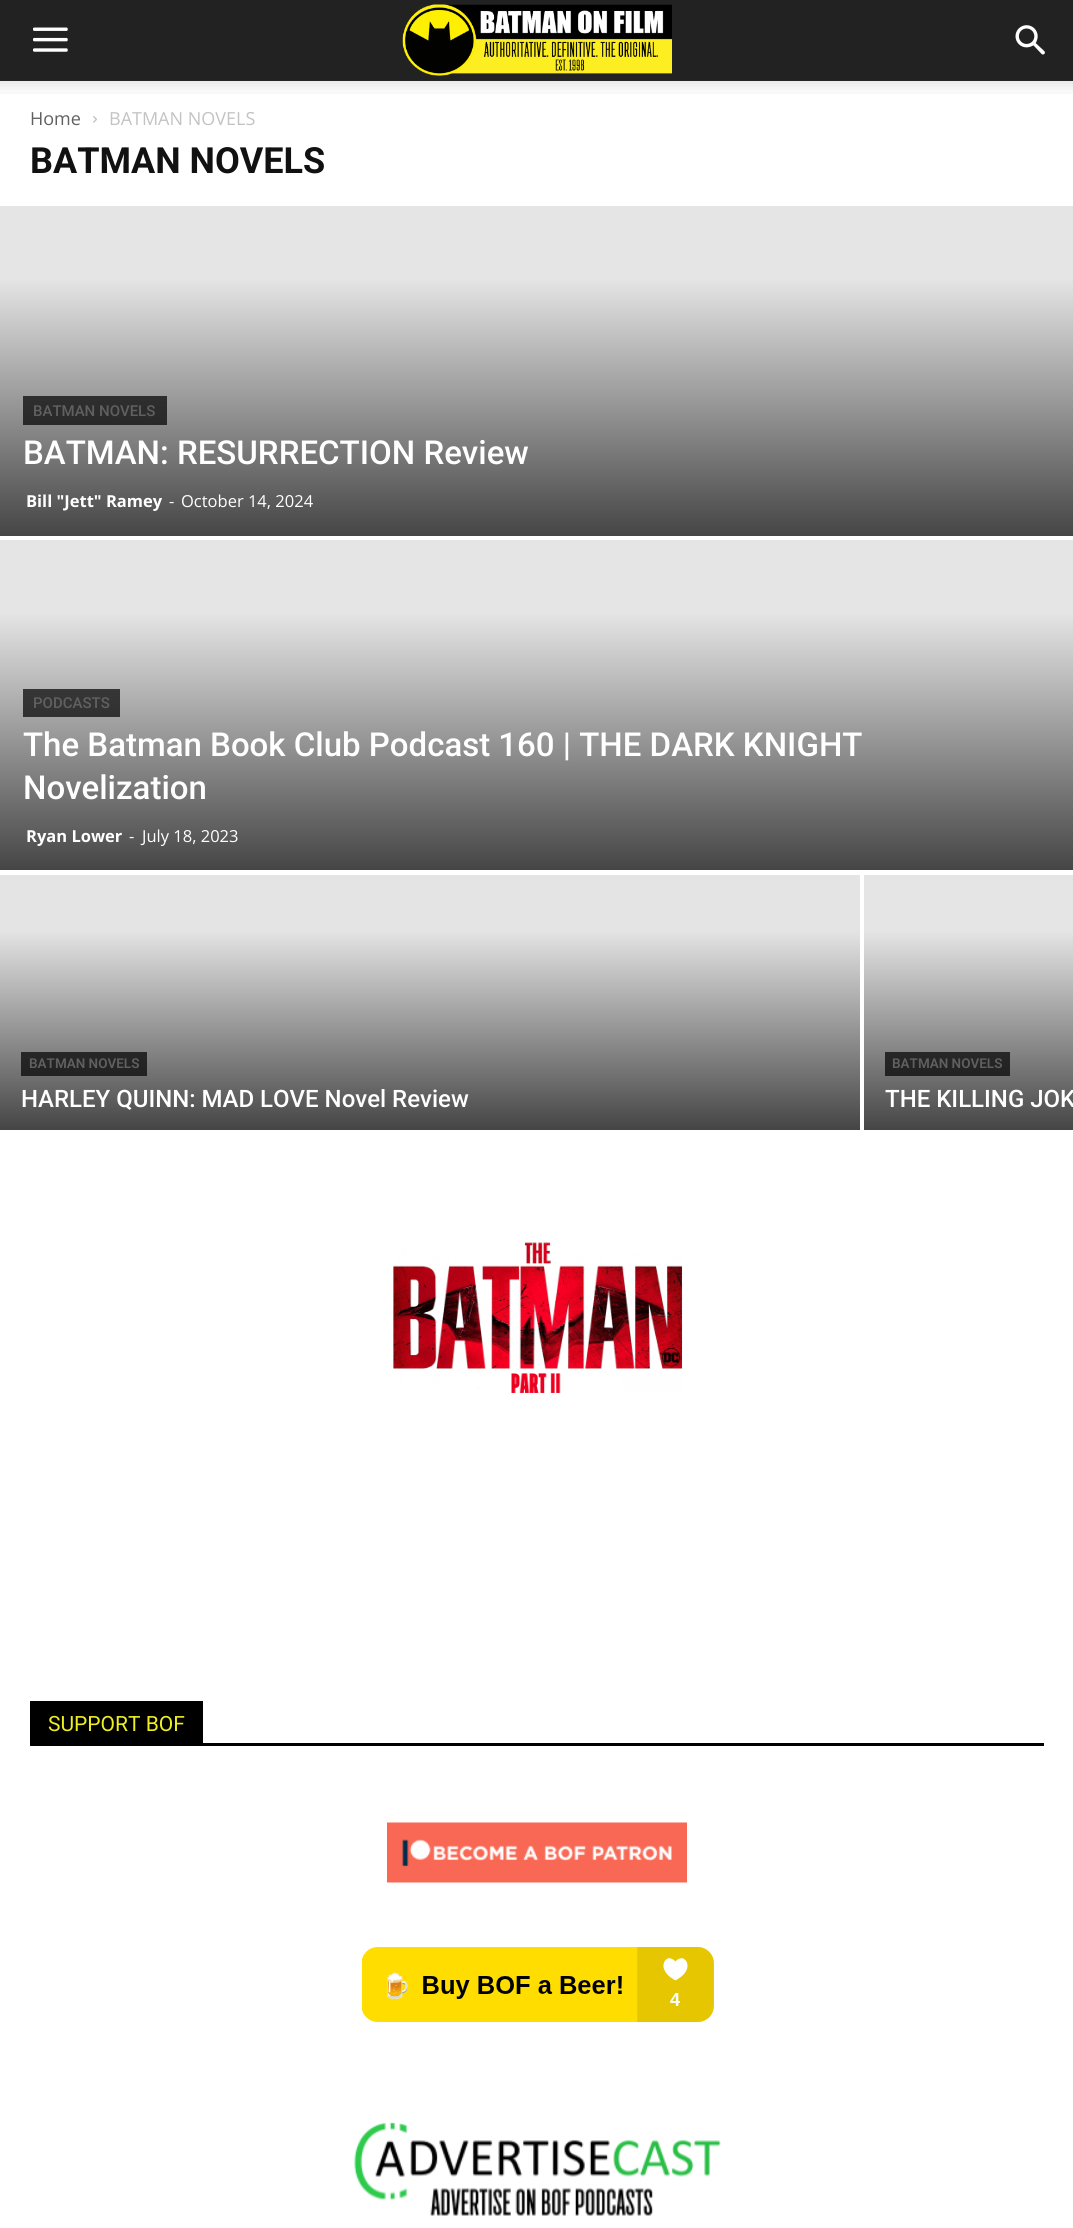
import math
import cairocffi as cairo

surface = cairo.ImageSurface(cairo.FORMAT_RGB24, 1073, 2228)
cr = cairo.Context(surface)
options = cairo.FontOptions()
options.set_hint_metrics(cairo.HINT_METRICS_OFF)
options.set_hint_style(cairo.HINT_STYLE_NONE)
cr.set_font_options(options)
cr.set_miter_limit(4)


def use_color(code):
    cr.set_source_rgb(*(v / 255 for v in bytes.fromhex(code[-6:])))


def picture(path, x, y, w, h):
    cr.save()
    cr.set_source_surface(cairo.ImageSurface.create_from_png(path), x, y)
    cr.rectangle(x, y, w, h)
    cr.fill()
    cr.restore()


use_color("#ffffff")
cr.paint()
use_color("#222222")
cr.rectangle(0, 0, 1073, 81)
cr.fill()
picture("img1.png", 33, 27, 35, 25)
picture("img2.png", 402, 4, 270, 72)
picture("img3.png", 1015, 25, 30, 30)
picture("img4.png", 0, 81, 1073, 13)
cr.select_font_face("Open Sans")
cr.set_font_size(18)
use_color("#606060")
cr.move_to(30, 125)
cr.show_text("Home")
picture("img5.png", 93, 116, 4, 7)
use_color("#c3c3c3")
cr.move_to(109, 125)
cr.show_text("BATMAN NOVELS")
cr.select_font_face("Roboto", cairo.FONT_SLANT_NORMAL, cairo.FONT_WEIGHT_BOLD)
cr.set_font_size(36)
use_color("#111111")
cr.move_to(30, 173)
cr.show_text("BATMAN NOVELS")
gradient = cairo.LinearGradient(537, 106, 537, 536)
gradient.add_color_stop_rgba(0.4, 0.898, 0.898, 0.898, 1)
gradient.add_color_stop_rgba(1, 0.271, 0.271, 0.271, 1)
cr.set_source(gradient)
cr.rectangle(0, 206, 1073, 330)
cr.fill()
cr.set_source_rgba(0, 0, 0, 0.7)
cr.rectangle(23, 396, 144, 29)
cr.fill()
cr.select_font_face("Roboto Medium")
cr.set_font_size(15)
use_color("#606060")
cr.move_to(33, 416)
cr.show_text("BATMAN NOVELS")
cr.set_font_size(33)
use_color("#ffffff")
cr.move_to(23, 464)
cr.show_text("BATMAN: RESURRECTION Review")
cr.select_font_face("Open Sans", cairo.FONT_SLANT_NORMAL, cairo.FONT_WEIGHT_BOLD)
cr.set_font_size(16.5)
cr.move_to(26, 507)
cr.show_text("Bill \"Jett\" Ramey")
cr.select_font_face("Open Sans")
cr.move_to(169, 507)
cr.show_text("-")
cr.move_to(181, 507)
cr.show_text("October 14, 2024")
gradient = cairo.LinearGradient(537, 441, 537, 870)
gradient.add_color_stop_rgba(0.4, 0.898, 0.898, 0.898, 1)
gradient.add_color_stop_rgba(1, 0.271, 0.271, 0.271, 1)
cr.set_source(gradient)
cr.rectangle(0, 540, 1073, 330)
cr.fill()
cr.set_source_rgba(0, 0, 0, 0.7)
cr.rectangle(23, 689, 97, 28)
cr.fill()
cr.select_font_face("Roboto Medium")
cr.set_font_size(15)
use_color("#606060")
cr.move_to(33, 708)
cr.show_text("PODCASTS")
cr.set_font_size(33)
use_color("#ffffff")
cr.move_to(23, 756)
cr.show_text("The Batman Book Club Podcast 160 | THE DARK KNIGHT")
cr.move_to(23, 799)
cr.show_text("Novelization")
cr.select_font_face("Open Sans", cairo.FONT_SLANT_NORMAL, cairo.FONT_WEIGHT_BOLD)
cr.set_font_size(16.5)
cr.move_to(26, 842)
cr.show_text("Ryan Lower")
cr.select_font_face("Open Sans")
cr.move_to(129, 842)
cr.show_text("-")
cr.move_to(142, 842)
cr.show_text("July 18, 2023")
gradient = cairo.LinearGradient(430, 798, 430, 1130)
gradient.add_color_stop_rgba(0.4, 0.894, 0.894, 0.894, 1)
gradient.add_color_stop_rgba(1, 0.271, 0.271, 0.271, 1)
cr.set_source(gradient)
cr.rectangle(0, 875, 860, 255)
cr.fill()
cr.set_source_rgba(0, 0, 0, 0.7)
cr.rectangle(21, 1052, 126, 24)
cr.fill()
cr.select_font_face("Roboto SemiBold")
cr.set_font_size(13.5)
use_color("#606060")
cr.move_to(29, 1068)
cr.show_text("BATMAN NOVELS")
cr.select_font_face("Roboto Medium")
cr.set_font_size(24)
use_color("#ffffff")
cr.move_to(21, 1107)
cr.show_text("HARLEY QUINN: MAD LOVE Novel Review")
gradient = cairo.LinearGradient(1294, 798, 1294, 1130)
gradient.add_color_stop_rgba(0.4, 0.898, 0.898, 0.898, 1)
gradient.add_color_stop_rgba(1, 0.271, 0.271, 0.271, 1)
cr.set_source(gradient)
cr.rectangle(864, 875, 209, 255)
cr.fill()
cr.set_source_rgba(0, 0, 0, 0.7)
cr.rectangle(885, 1052, 125, 24)
cr.fill()
cr.select_font_face("Roboto SemiBold")
cr.set_font_size(13.5)
use_color("#606060")
cr.move_to(892, 1068)
cr.show_text("BATMAN NOVELS")
cr.select_font_face("Roboto Medium")
cr.set_font_size(24)
use_color("#ffffff")
cr.move_to(885, 1107)
cr.show_text("THE KILLING JOK")
picture("img6.png", 393, 1242, 290, 151)
use_color("#000000")
cr.rectangle(30, 1743, 1014, 3)
cr.fill()
cr.rectangle(30, 1701, 173, 42)
cr.fill()
cr.select_font_face("Roboto")
cr.set_font_size(21)
use_color("#eeee22")
cr.move_to(48, 1731)
cr.show_text("SUPPORT BOF")
picture("img7.png", 387, 1822, 300, 61)
picture("img8.png", 362, 1947, 352, 75)
picture("img9.png", 354, 2122, 367, 94)
surface.write_to_png("result.png")
